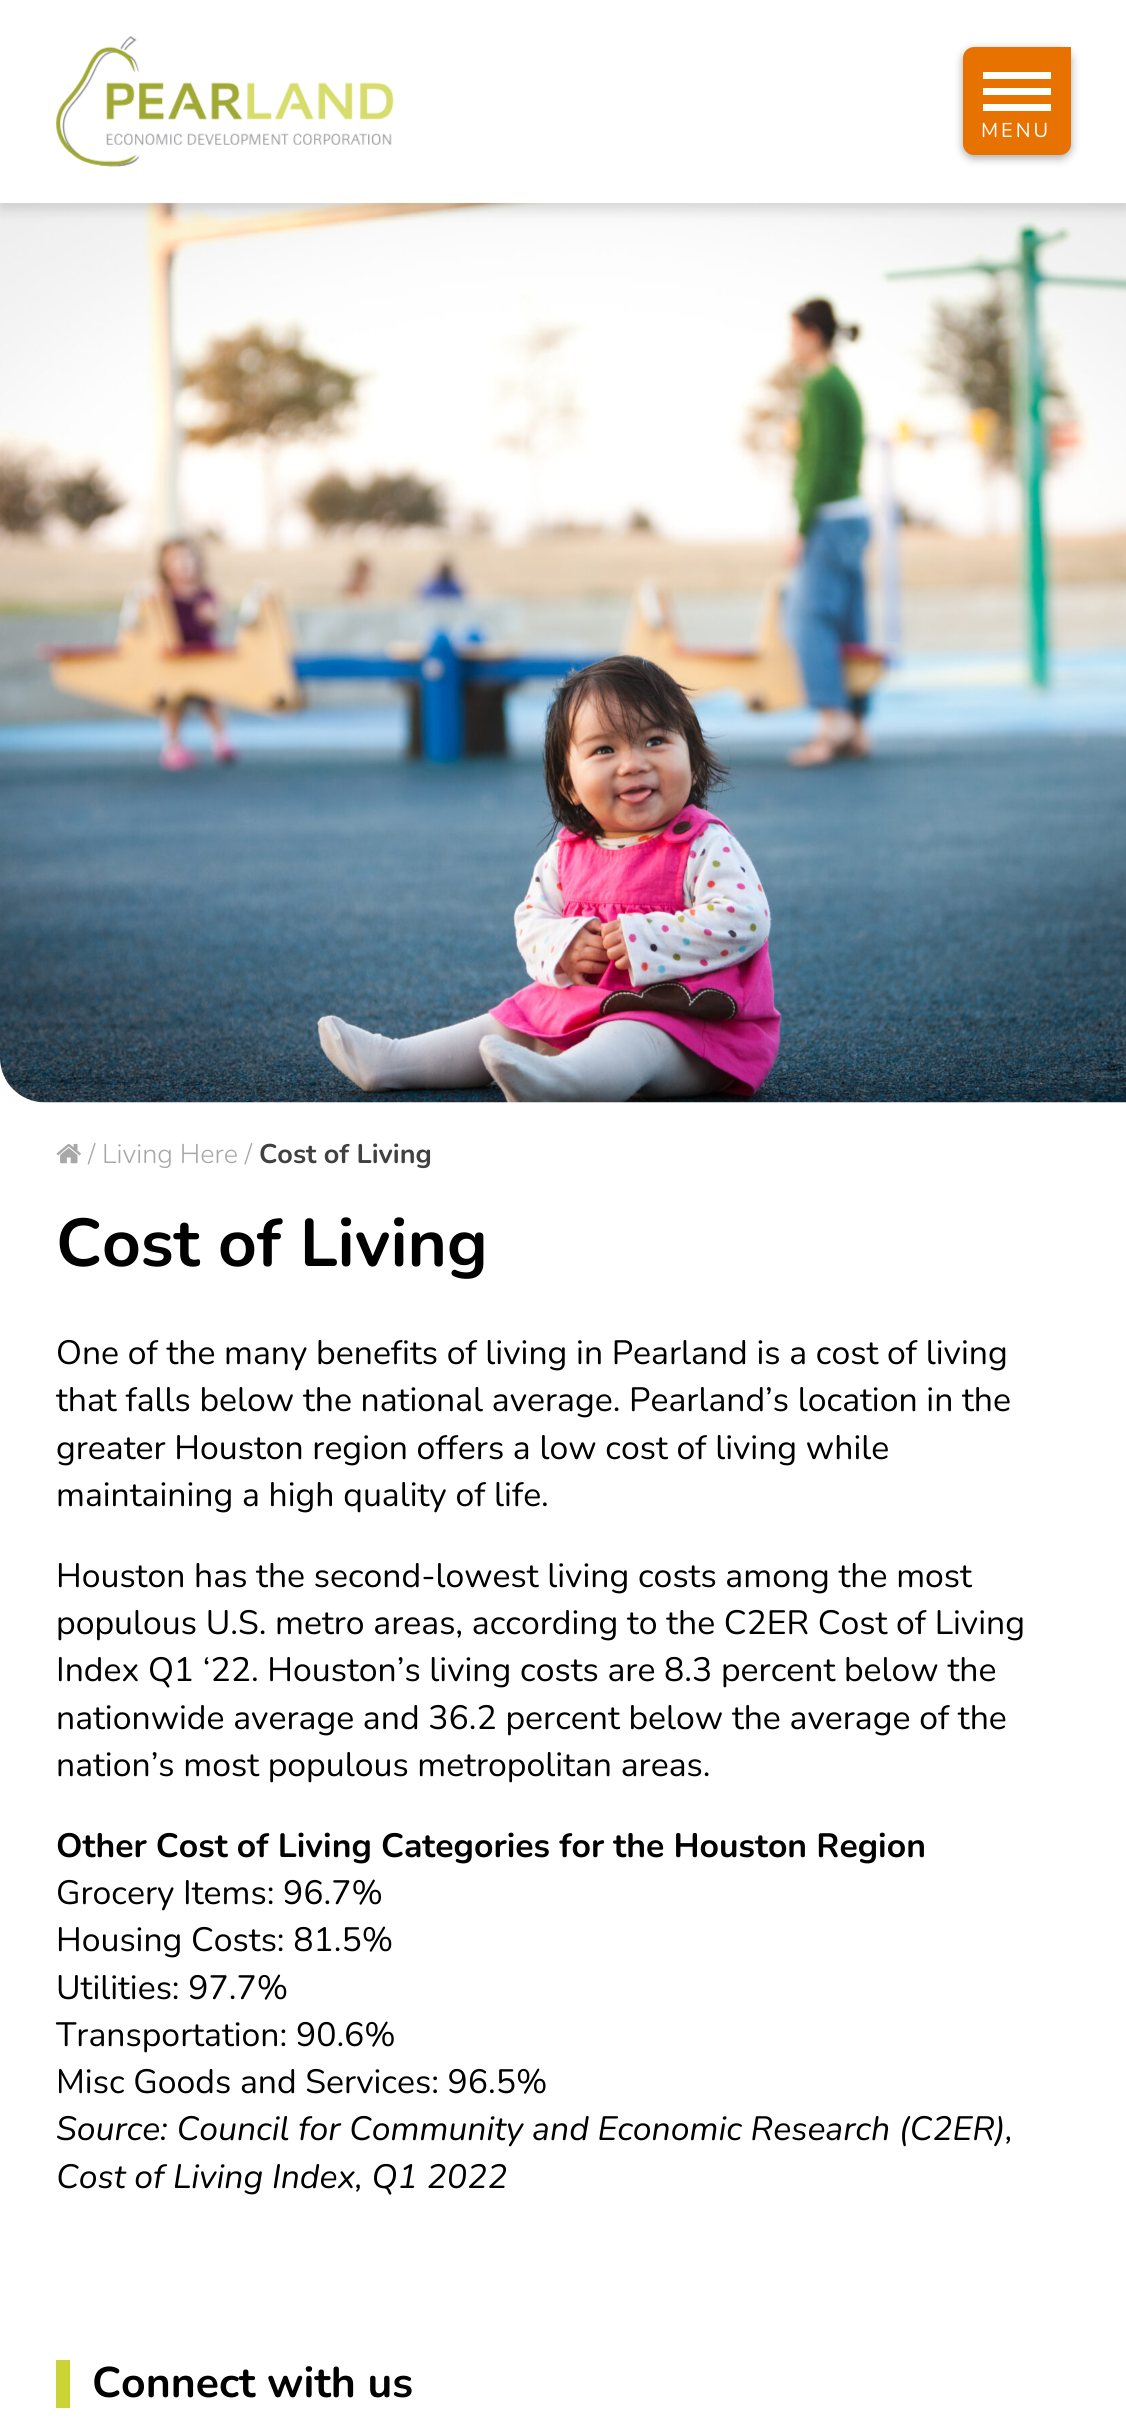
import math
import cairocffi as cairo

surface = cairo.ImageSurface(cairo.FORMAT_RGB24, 1126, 2428)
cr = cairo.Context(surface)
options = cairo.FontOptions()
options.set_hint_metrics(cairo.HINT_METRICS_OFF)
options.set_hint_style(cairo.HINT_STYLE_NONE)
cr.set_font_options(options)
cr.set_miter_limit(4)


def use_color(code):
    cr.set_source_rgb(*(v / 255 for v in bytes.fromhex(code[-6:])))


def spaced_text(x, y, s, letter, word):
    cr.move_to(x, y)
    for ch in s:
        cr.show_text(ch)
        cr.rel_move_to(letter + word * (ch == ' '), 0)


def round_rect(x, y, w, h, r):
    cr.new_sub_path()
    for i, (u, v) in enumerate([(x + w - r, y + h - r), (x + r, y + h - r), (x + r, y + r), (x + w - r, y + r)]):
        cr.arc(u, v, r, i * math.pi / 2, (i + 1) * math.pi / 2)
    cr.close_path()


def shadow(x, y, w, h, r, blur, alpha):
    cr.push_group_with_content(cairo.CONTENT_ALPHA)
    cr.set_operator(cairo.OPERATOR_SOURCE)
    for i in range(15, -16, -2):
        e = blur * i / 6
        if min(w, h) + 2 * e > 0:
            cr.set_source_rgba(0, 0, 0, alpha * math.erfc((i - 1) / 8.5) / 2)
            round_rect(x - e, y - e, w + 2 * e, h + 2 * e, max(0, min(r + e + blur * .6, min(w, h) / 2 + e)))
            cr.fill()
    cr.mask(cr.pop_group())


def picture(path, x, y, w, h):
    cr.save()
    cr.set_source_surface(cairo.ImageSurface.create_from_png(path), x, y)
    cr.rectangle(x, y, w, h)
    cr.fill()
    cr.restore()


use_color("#ffffff")
cr.paint()
picture("img2.png", 0, 203, 1126, 900)
use_color("#000000")
shadow(0, 7, 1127, 202, 0, 7, 0.15)
use_color("#ffffff")
cr.rectangle(0, 0, 1126, 203)
cr.fill()
picture("img1.png", 56, 35, 338, 132)
use_color("#000000")
shadow(963, 50, 108, 108, 11, 4.5, 0.35)
use_color("#e87200")
cr.new_path()
cr.move_to(974, 47)
cr.line_to(1071, 47)
cr.line_to(1071, 144)
cr.curve_to(1071, 150, 1066, 155, 1060, 155)
cr.line_to(974, 155)
cr.curve_to(968, 155, 963, 150, 963, 144)
cr.line_to(963, 58)
cr.curve_to(963, 52, 968, 47, 974, 47)
cr.close_path()
cr.fill()
use_color("#ffffff")
cr.rectangle(983, 72, 68, 7)
cr.fill()
cr.rectangle(983, 88, 68, 7)
cr.fill()
cr.rectangle(983, 104, 68, 7)
cr.fill()
cr.select_font_face("Nunito")
cr.set_font_size(20)
spaced_text(981, 137, "MENU", 3, 0)
picture("img3.png", 56, 1143, 25, 21)
cr.select_font_face("Nunito Light")
cr.set_font_size(27)
use_color("#a9a8a9")
cr.move_to(88, 1163)
cr.show_text("/ Living Here /")
cr.select_font_face("Nunito", cairo.FONT_SLANT_NORMAL, cairo.FONT_WEIGHT_BOLD)
use_color("#414141")
cr.move_to(259, 1163)
cr.show_text("Cost of Living")
cr.set_font_size(67.5)
use_color("#000000")
cr.move_to(56, 1266)
cr.show_text("Cost of Living")
cr.select_font_face("Nunito")
cr.set_font_size(33.75)
cr.move_to(56, 1364)
cr.show_text("One of the many benefits of living in Pearland is a cost of living")
cr.move_to(56, 1411)
cr.show_text("that falls below the national average. Pearland’s location in the")
cr.move_to(56, 1459)
cr.show_text("greater Houston region offers a low cost of living while")
cr.move_to(56, 1506)
cr.show_text("maintaining a high quality of life.")
cr.move_to(56, 1587)
cr.show_text("Houston has the second-lowest living costs among the most")
cr.move_to(56, 1634)
cr.show_text("populous U.S. metro areas, according to the C2ER Cost of Living")
cr.move_to(56, 1681)
cr.show_text("Index Q1 ‘22. Houston’s living costs are 8.3 percent below the")
cr.move_to(56, 1729)
cr.show_text("nationwide average and 36.2 percent below the average of the")
cr.move_to(56, 1776)
cr.show_text("nation’s most populous metropolitan areas.")
cr.select_font_face("Nunito", cairo.FONT_SLANT_NORMAL, cairo.FONT_WEIGHT_BOLD)
cr.move_to(56, 1857)
cr.show_text("Other Cost of Living Categories for the Houston Region")
cr.select_font_face("Nunito")
cr.move_to(56, 1904)
cr.show_text("Grocery Items: 96.7%")
cr.move_to(56, 1951)
cr.show_text("Housing Costs: 81.5%")
cr.move_to(56, 1999)
cr.show_text("Utilities: 97.7%")
cr.move_to(56, 2046)
cr.show_text("Transportation: 90.6%")
cr.move_to(56, 2093)
cr.show_text("Misc Goods and Services: 96.5%")
cr.select_font_face("Nunito", cairo.FONT_SLANT_ITALIC)
cr.move_to(56, 2140)
cr.show_text("Source: Council for Community and Economic Research (C2ER),")
cr.move_to(56, 2188)
cr.show_text("Cost of Living Index, Q1 2022")
use_color("#cad435")
cr.rectangle(56, 2360, 14, 48)
cr.fill()
cr.select_font_face("Nunito", cairo.FONT_SLANT_NORMAL, cairo.FONT_WEIGHT_BOLD)
cr.set_font_size(42.75)
use_color("#000000")
cr.move_to(92, 2397)
cr.show_text("Connect with us")
surface.write_to_png("result.png")
